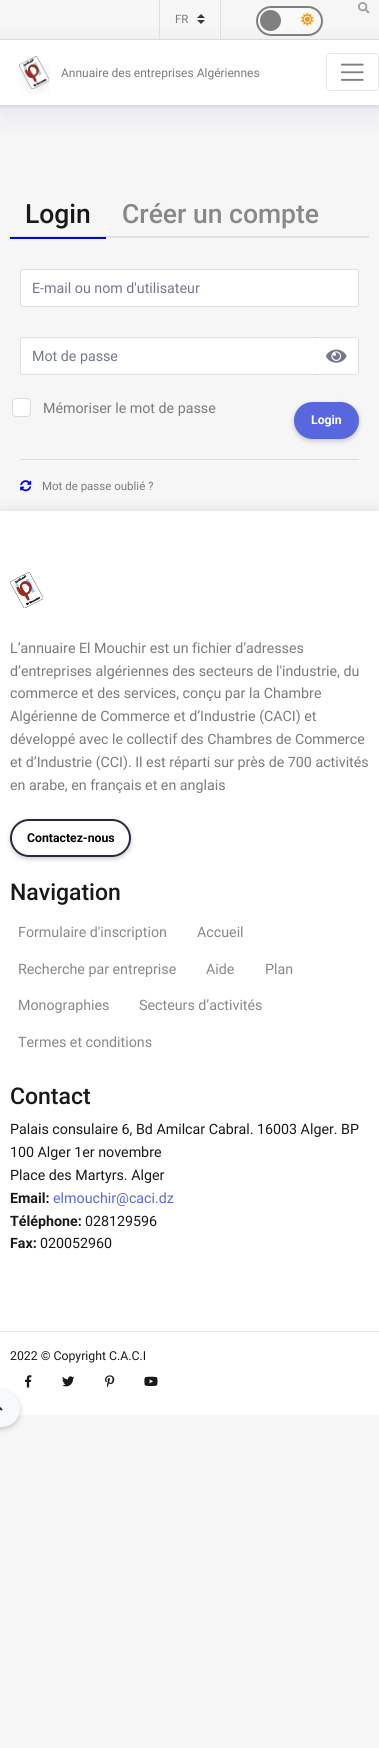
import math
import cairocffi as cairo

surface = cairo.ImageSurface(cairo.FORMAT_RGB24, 379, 1748)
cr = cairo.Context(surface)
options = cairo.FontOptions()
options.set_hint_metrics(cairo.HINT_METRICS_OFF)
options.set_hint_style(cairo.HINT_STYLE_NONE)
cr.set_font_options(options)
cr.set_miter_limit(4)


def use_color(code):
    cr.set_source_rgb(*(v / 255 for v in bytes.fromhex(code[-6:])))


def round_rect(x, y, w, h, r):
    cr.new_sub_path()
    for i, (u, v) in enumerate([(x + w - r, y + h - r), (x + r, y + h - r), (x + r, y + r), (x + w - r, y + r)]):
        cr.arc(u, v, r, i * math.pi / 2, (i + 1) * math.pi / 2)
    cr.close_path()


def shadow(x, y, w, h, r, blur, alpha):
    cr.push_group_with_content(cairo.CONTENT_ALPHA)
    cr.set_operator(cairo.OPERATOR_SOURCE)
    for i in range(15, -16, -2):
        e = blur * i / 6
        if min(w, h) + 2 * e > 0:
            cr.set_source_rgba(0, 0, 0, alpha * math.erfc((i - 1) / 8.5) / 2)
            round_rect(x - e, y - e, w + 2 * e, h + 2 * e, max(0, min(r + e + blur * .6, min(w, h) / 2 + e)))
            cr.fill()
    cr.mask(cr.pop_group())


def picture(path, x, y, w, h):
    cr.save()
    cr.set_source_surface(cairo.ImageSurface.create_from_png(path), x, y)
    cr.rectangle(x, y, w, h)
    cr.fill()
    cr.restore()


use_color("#f6f6f6")
cr.paint()
cr.save()
cr.rectangle(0, 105, 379, 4)
cr.clip()
use_color("#000000")
shadow(0, 2, 379, 105, 0, 2.5, 0.1)
cr.restore()
use_color("#dddddd")
cr.rectangle(0, 39, 379, 1)
cr.fill()
picture("img1.png", 197, 14, 8, 10)
use_color("#dee2e6")
cr.rectangle(220, 0, 1, 39)
cr.fill()
cr.rectangle(159, 0, 1, 39)
cr.fill()
cr.select_font_face("Roboto")
cr.set_font_size(11.5)
use_color("#7b7b7b")
cr.move_to(175, 23)
cr.show_text("FR")
use_color("#fafafa")
round_rect(257, 7, 65, 28, 14)
cr.fill_preserve()
use_color("#808080")
cr.stroke()
cr.arc(270.5, 20.5, 10.5, 0, 2 * math.pi)
cr.fill()
picture("img2.png", 301, 12, 13, 14)
picture("img3.png", 358, 2, 12, 12)
use_color("#1f2687")
shadow(0, 48, 379, 65, 0, 16, 0.08)
use_color("#ffffff")
cr.rectangle(0, 40, 379, 65)
cr.fill()
picture("img4.png", 19, 56, 31, 38)
cr.set_font_size(12)
use_color("#7b7b7b")
cr.move_to(61, 77)
cr.show_text("Annuaire des entreprises Algériennes")
round_rect(326.5, 53.5, 52, 37, 3.5)
use_color("#e6e6e6")
cr.set_line_width(1)
cr.stroke()
picture("img5.png", 340, 63, 24, 18)
use_color("#dee2e6")
cr.rectangle(10, 236, 359, 2)
cr.fill()
use_color("#0000ff")
cr.rectangle(10, 237, 96, 2)
cr.fill()
cr.select_font_face("Roboto Medium")
cr.set_font_size(26.5)
use_color("#191919")
cr.move_to(25, 223)
cr.show_text("Login")
use_color("#888888")
cr.move_to(122, 223)
cr.show_text("Créer un compte")
use_color("#ffffff")
round_rect(21, 270, 337, 36, 2)
cr.fill()
round_rect(20.5, 269.5, 338, 37, 2.5)
cr.set_source_rgba(0, 0, 0, 0.1)
cr.stroke()
cr.select_font_face("Roboto")
cr.set_font_size(14.25)
use_color("#74788d")
cr.move_to(32, 293)
cr.show_text("E-mail ou nom d'utilisateur")
use_color("#ffffff")
cr.new_path()
cr.move_to(315, 337)
cr.line_to(355, 337)
cr.curve_to(357, 337, 359, 339, 359, 341)
cr.line_to(359, 371)
cr.curve_to(359, 373, 357, 375, 355, 375)
cr.line_to(315, 375)
cr.close_path()
cr.fill()
cr.set_source_rgba(0.098, 0.098, 0.098, 0.15)
cr.set_fill_rule(cairo.FILL_RULE_EVEN_ODD)
cr.new_path()
cr.move_to(315, 337)
cr.line_to(355, 337)
cr.curve_to(357, 337, 359, 339, 359, 341)
cr.line_to(359, 371)
cr.curve_to(359, 373, 357, 375, 355, 375)
cr.line_to(315, 375)
cr.close_path()
cr.move_to(315, 338)
cr.line_to(355, 338)
cr.curve_to(357, 338, 358, 339, 358, 341)
cr.line_to(358, 371)
cr.curve_to(358, 373, 357, 374, 355, 374)
cr.line_to(315, 374)
cr.close_path()
cr.fill()
use_color("#ffffff")
cr.new_path()
cr.move_to(23, 338)
cr.line_to(316, 338)
cr.line_to(316, 374)
cr.line_to(23, 374)
cr.curve_to(22, 374, 21, 373, 21, 372)
cr.line_to(21, 340)
cr.curve_to(21, 339, 22, 338, 23, 338)
cr.close_path()
cr.fill()
cr.set_source_rgba(0, 0, 0, 0.1)
cr.new_path()
cr.move_to(23, 337)
cr.line_to(316, 337)
cr.line_to(316, 375)
cr.line_to(23, 375)
cr.curve_to(21, 375, 20, 374, 20, 372)
cr.line_to(20, 340)
cr.curve_to(20, 338, 21, 337, 23, 337)
cr.close_path()
cr.move_to(23, 338)
cr.line_to(316, 338)
cr.line_to(316, 374)
cr.line_to(23, 374)
cr.curve_to(22, 374, 21, 373, 21, 372)
cr.line_to(21, 340)
cr.curve_to(21, 339, 22, 338, 23, 338)
cr.close_path()
cr.fill()
use_color("#74788d")
cr.move_to(32, 361)
cr.show_text("Mot de passe")
picture("img6.png", 326, 349, 21, 14)
use_color("#ffffff")
round_rect(12, 398, 19, 19, 4)
cr.fill()
round_rect(12.5, 398.5, 18, 18, 3.5)
cr.set_source_rgba(0, 0, 0, 0.15)
cr.stroke()
use_color("#7b7b7b")
cr.move_to(43, 413)
cr.show_text("Mémoriser le mot de passe")
use_color("#000000")
shadow(294, 404, 65, 37, 18.5, 2.5, 0.2)
use_color("#5867dd")
round_rect(295, 403, 63, 35, 17.5)
cr.fill_preserve()
cr.set_line_width(2)
cr.stroke()
cr.select_font_face("Roboto", cairo.FONT_SLANT_NORMAL, cairo.FONT_WEIGHT_BOLD)
cr.set_font_size(12.25)
use_color("#ffffff")
cr.move_to(311, 424)
cr.show_text("Login")
use_color("#dddddd")
cr.rectangle(20, 459, 339, 1)
cr.fill()
picture("img7.png", 20, 480, 12, 12)
cr.save()
cr.set_fill_rule(cairo.FILL_RULE_WINDING)
cr.rectangle(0, 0, 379, 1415)
cr.clip()
use_color("#000000")
shadow(0, 514, 379, 904, 0, 7, 0.15)
cr.restore()
cr.select_font_face("Roboto")
cr.set_font_size(11.5)
use_color("#7b7b7b")
cr.move_to(42, 490)
cr.show_text("Mot de passe oublié ?")
use_color("#ffffff")
cr.rectangle(0, 511, 379, 904)
cr.fill()
picture("img8.png", 10, 572, 33, 36)
cr.set_font_size(14.25)
use_color("#7b7b7b")
cr.move_to(10, 653)
cr.show_text("L’annuaire El Mouchir est un fichier d’adresses")
cr.move_to(10, 676)
cr.show_text("d’entreprises algériennes des secteurs de l'industrie, du")
cr.move_to(10, 698)
cr.show_text("commerce et des services, conçu par la Chambre")
cr.move_to(10, 721)
cr.show_text("Algérienne de Commerce et d’Industrie (CACI) et")
cr.move_to(10, 744)
cr.show_text("développé avec le collectif des Chambres de Commerce")
cr.move_to(10, 767)
cr.show_text("et d’Industrie (CCI). Il est réparti sur près de 700 activités")
cr.move_to(10, 790)
cr.show_text("en arabe, en français et en anglais")
cr.save()
cr.new_path()
cr.move_to(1, 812)
cr.line_to(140, 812)
cr.line_to(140, 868)
cr.line_to(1, 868)
cr.close_path()
cr.move_to(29, 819)
cr.line_to(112, 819)
cr.curve_to(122.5, 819, 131, 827.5, 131, 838)
cr.curve_to(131, 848.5, 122.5, 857, 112, 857)
cr.line_to(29, 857)
cr.curve_to(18.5, 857, 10, 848.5, 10, 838)
cr.curve_to(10, 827.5, 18.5, 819, 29, 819)
cr.close_path()
cr.clip()
use_color("#000000")
shadow(10, 821, 121, 38, 19, 2.5, 0.2)
cr.restore()
cr.save()
cr.set_fill_rule(cairo.FILL_RULE_WINDING)
round_rect(10, 819, 121, 38, 19)
cr.clip()
gradient = cairo.LinearGradient(33, 800, 108, 876)
gradient.add_color_stop_rgba(0, 1, 1, 1, 0.9)
gradient.add_color_stop_rgba(1, 1, 1, 1, 0.8)
cr.set_source(gradient)
cr.rectangle(12, 821, 117, 34)
cr.fill()
cr.restore()
round_rect(11, 820, 119, 36, 18)
use_color("#282a3c")
cr.stroke()
cr.select_font_face("Roboto", cairo.FONT_SLANT_NORMAL, cairo.FONT_WEIGHT_BOLD)
cr.set_font_size(12.25)
use_color("#000000")
cr.move_to(27, 842)
cr.show_text("Contactez-nous")
cr.select_font_face("Roboto Medium")
cr.set_font_size(23)
use_color("#191919")
cr.move_to(10, 900)
cr.show_text("Navigation")
cr.select_font_face("Roboto")
cr.set_font_size(14.25)
use_color("#888888")
cr.move_to(18, 937)
cr.show_text("Formulaire d'inscription")
cr.move_to(197, 937)
cr.show_text("Accueil")
cr.move_to(18, 974)
cr.show_text("Recherche par entreprise")
cr.move_to(206, 974)
cr.show_text("Aide")
cr.move_to(265, 974)
cr.show_text("Plan")
cr.move_to(18, 1010)
cr.show_text("Monographies")
cr.move_to(139, 1010)
cr.show_text("Secteurs d’activités")
cr.move_to(18, 1047)
cr.show_text("Termes et conditions")
cr.select_font_face("Roboto Medium")
cr.set_font_size(23)
use_color("#191919")
cr.move_to(10, 1104)
cr.show_text("Contact")
cr.select_font_face("Roboto")
cr.set_font_size(14.25)
cr.move_to(10, 1134)
cr.show_text("Palais consulaire 6, Bd Amilcar Cabral. 16003 Alger. BP")
cr.move_to(10, 1157)
cr.show_text("100 Alger 1er novembre")
cr.move_to(10, 1180)
cr.show_text("Place des Martyrs. Alger")
cr.select_font_face("Roboto", cairo.FONT_SLANT_NORMAL, cairo.FONT_WEIGHT_BOLD)
cr.move_to(10, 1203)
cr.show_text("Email:")
cr.select_font_face("Roboto")
use_color("#5867dd")
cr.move_to(53, 1203)
cr.show_text("elmouchir@caci.dz")
cr.select_font_face("Roboto", cairo.FONT_SLANT_NORMAL, cairo.FONT_WEIGHT_BOLD)
use_color("#191919")
cr.move_to(10, 1226)
cr.show_text("Téléphone:")
cr.select_font_face("Roboto")
cr.move_to(85, 1226)
cr.show_text("028129596")
cr.select_font_face("Roboto", cairo.FONT_SLANT_NORMAL, cairo.FONT_WEIGHT_BOLD)
cr.move_to(10, 1248)
cr.show_text("Fax:")
cr.select_font_face("Roboto")
cr.move_to(40, 1248)
cr.show_text("020052960")
use_color("#e6e6e6")
cr.rectangle(0, 1331, 379, 1)
cr.fill()
cr.set_font_size(12.3)
use_color("#191919")
cr.move_to(10, 1360)
cr.show_text("2022 © Copyright C.A.C.I")
picture("img9.png", 25, 1375, 7, 13)
picture("img10.png", 62, 1376, 13, 11)
picture("img11.png", 105, 1375, 10, 13)
picture("img12.png", 144, 1376, 14, 10)
use_color("#000000")
shadow(-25, 1392, 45, 37, 18.5, 2.5, 0.2)
use_color("#f8f9fa")
round_rect(-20, 1391, 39, 35, 17.5)
cr.fill_preserve()
cr.stroke()
picture("img13.png", 0, 1406, 3, 5)
surface.write_to_png("result.png")
